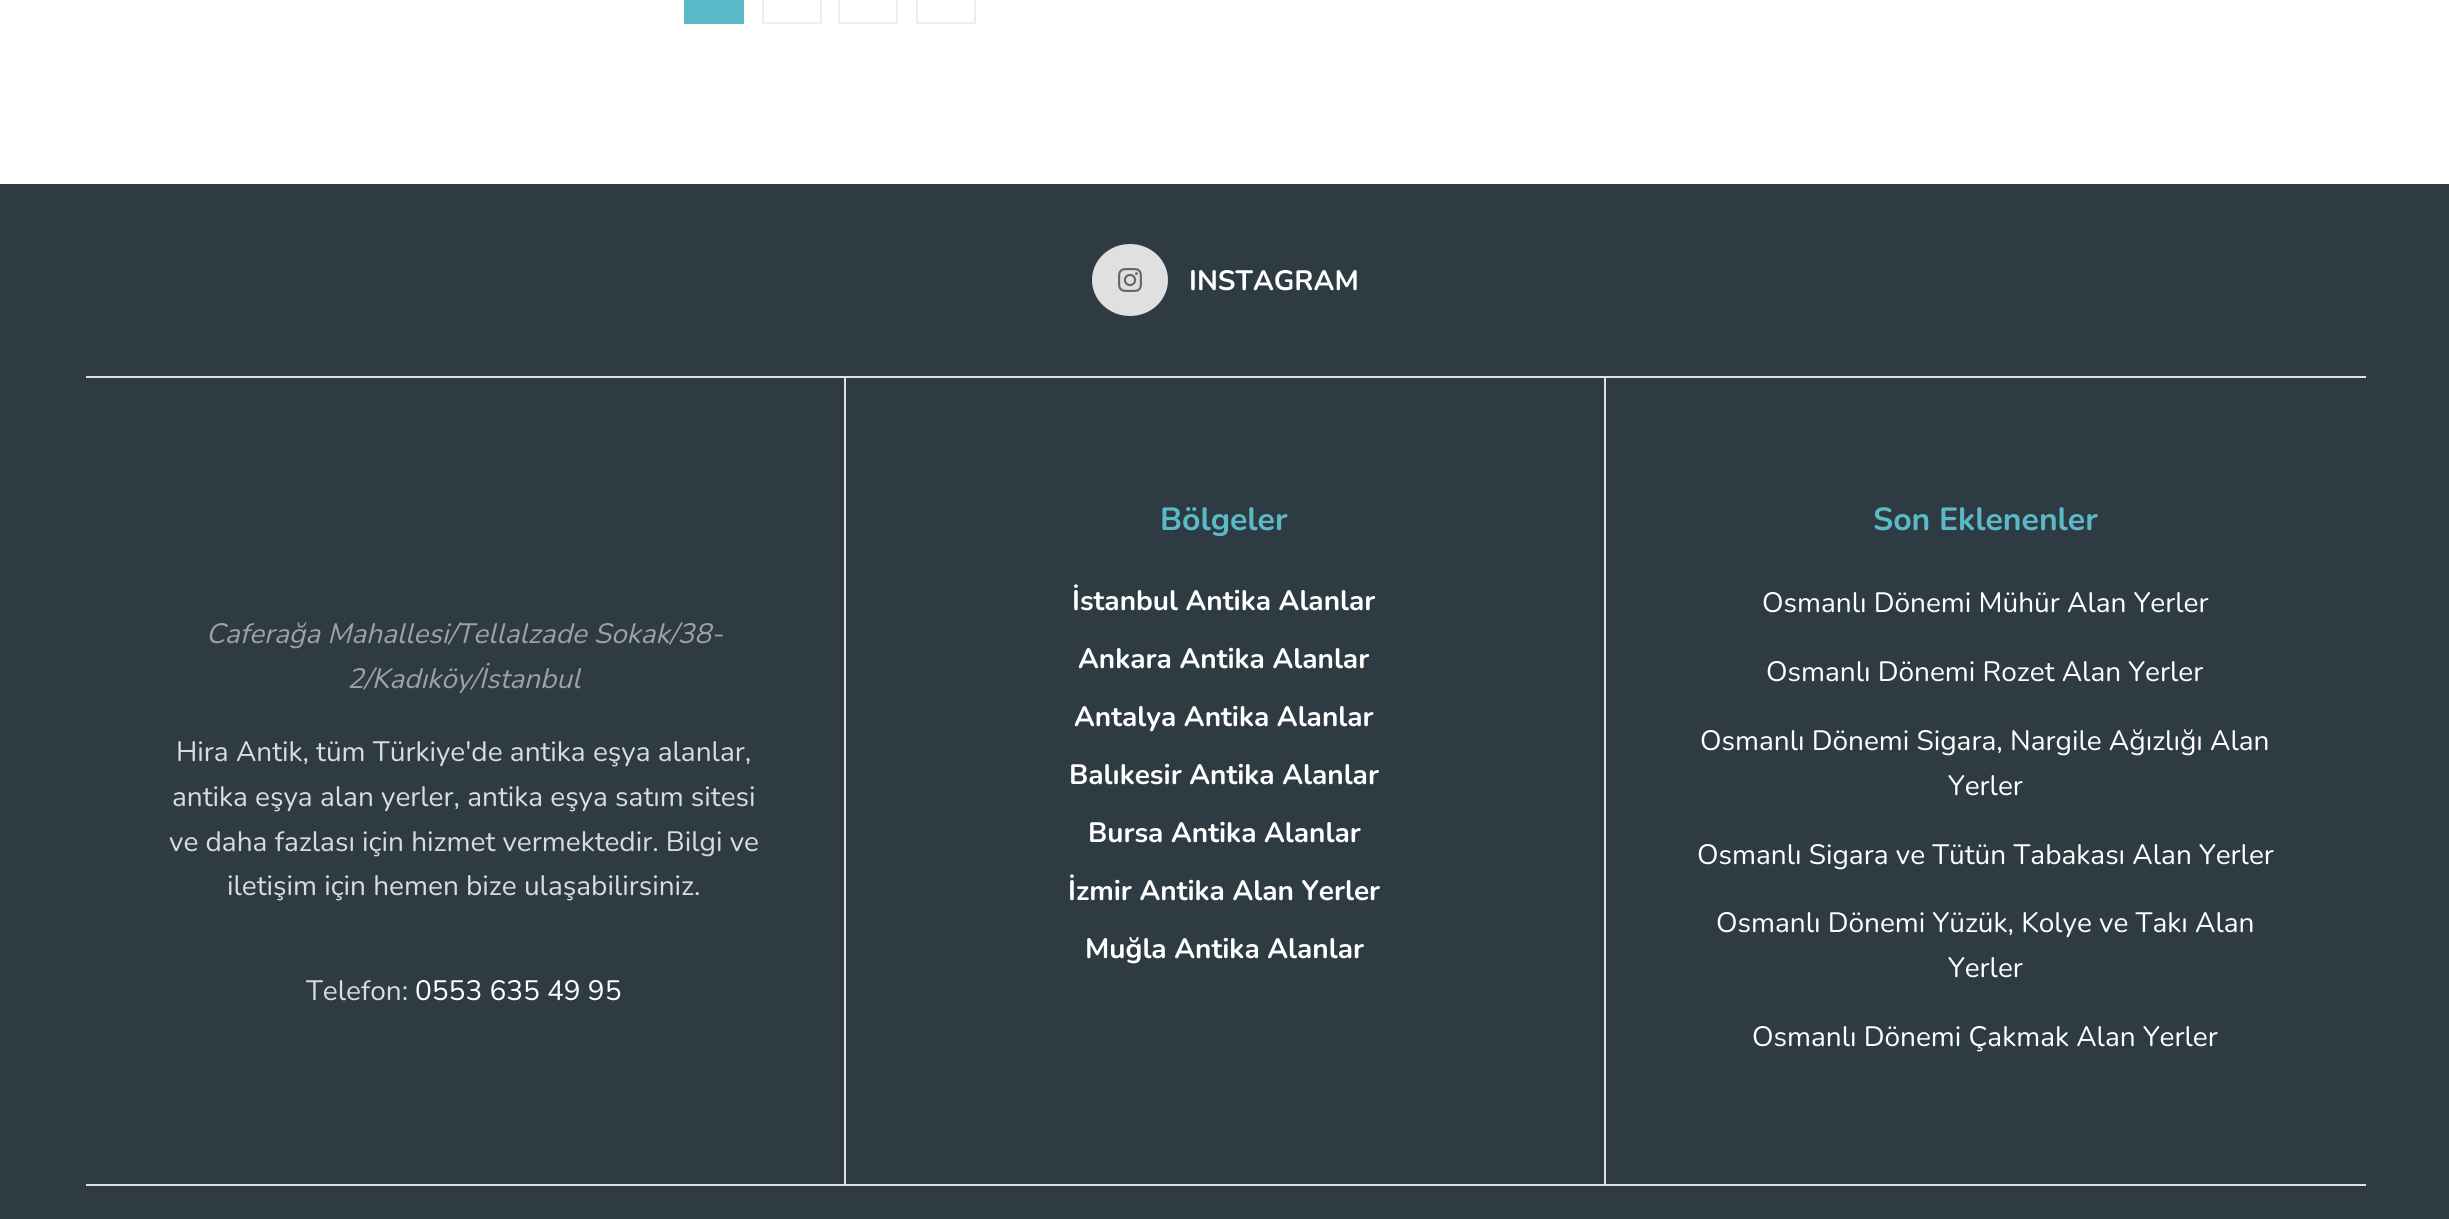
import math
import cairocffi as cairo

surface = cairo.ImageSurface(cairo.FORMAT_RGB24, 2449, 1219)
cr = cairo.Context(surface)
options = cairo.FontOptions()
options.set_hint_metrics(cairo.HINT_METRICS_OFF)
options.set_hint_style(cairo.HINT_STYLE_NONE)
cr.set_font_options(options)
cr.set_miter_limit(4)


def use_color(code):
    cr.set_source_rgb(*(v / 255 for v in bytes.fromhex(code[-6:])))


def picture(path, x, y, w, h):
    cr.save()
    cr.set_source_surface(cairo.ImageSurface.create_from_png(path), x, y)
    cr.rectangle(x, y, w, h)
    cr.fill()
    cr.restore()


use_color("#ffffff")
cr.paint()
use_color("#5bbac7")
cr.rectangle(684, 0, 60, 24)
cr.fill()
cr.rectangle(763, -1, 58, 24)
use_color("#eeeeee")
cr.stroke()
cr.rectangle(839, -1, 58, 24)
cr.stroke()
cr.rectangle(917, -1, 58, 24)
cr.stroke()
use_color("#2e3b43")
cr.rectangle(0, 184, 2449, 1035)
cr.fill()
use_color("#e0e0e0")
cr.rectangle(86, 376, 2280, 2)
cr.fill()
cr.new_path()
cr.move_to(1130, 244)
cr.curve_to(1151, 244, 1168, 260, 1168, 280)
cr.curve_to(1168, 300, 1151, 316, 1130, 316)
cr.curve_to(1109, 316, 1092, 300, 1092, 280)
cr.curve_to(1092, 260, 1109, 244, 1130, 244)
cr.close_path()
cr.fill()
picture("img1.png", 1118, 268, 24, 24)
cr.select_font_face("Nunito", cairo.FONT_SLANT_NORMAL, cairo.FONT_WEIGHT_BOLD)
cr.set_font_size(28)
use_color("#ffffff")
cr.move_to(1189, 290)
cr.show_text("INSTAGRAM")
use_color("#e0e0e0")
cr.rectangle(844, 378, 2, 806)
cr.fill()
cr.select_font_face("Nunito", cairo.FONT_SLANT_ITALIC)
use_color("#a0a0a0")
cr.move_to(206, 643)
cr.show_text("Caferağa Mahallesi/Tellalzade Sokak/38-")
cr.move_to(347, 688)
cr.show_text("2/Kadıköy/İstanbul")
cr.select_font_face("Nunito")
use_color("#d9dbdc")
cr.move_to(176, 761)
cr.show_text("Hira Antik, tüm Türkiye'de antika eşya alanlar,")
cr.move_to(172, 806)
cr.show_text("antika eşya alan yerler, antika eşya satım sitesi")
cr.move_to(169, 851)
cr.show_text("ve daha fazlası için hizmet vermektedir. Bilgi ve")
cr.move_to(227, 895)
cr.show_text("iletişim için hemen bize ulaşabilirsiniz.")
cr.move_to(306, 1000)
cr.show_text("Telefon:")
use_color("#ffffff")
cr.move_to(415, 1000)
cr.show_text("0553 635 49 95")
use_color("#e0e0e0")
cr.rectangle(1604, 378, 2, 806)
cr.fill()
cr.select_font_face("Nunito", cairo.FONT_SLANT_NORMAL, cairo.FONT_WEIGHT_BOLD)
cr.set_font_size(32)
use_color("#5bbac7")
cr.move_to(1160, 530)
cr.show_text("Bölgeler")
cr.set_font_size(28)
use_color("#ffffff")
cr.move_to(1072, 610)
cr.show_text("İstanbul Antika Alanlar")
cr.move_to(1078, 668)
cr.show_text("Ankara Antika Alanlar")
cr.move_to(1074, 726)
cr.show_text("Antalya Antika Alanlar")
cr.move_to(1069, 784)
cr.show_text("Balıkesir Antika Alanlar")
cr.move_to(1088, 842)
cr.show_text("Bursa Antika Alanlar")
cr.move_to(1068, 900)
cr.show_text("İzmir Antika Alan Yerler")
cr.move_to(1085, 958)
cr.show_text("Muğla Antika Alanlar")
cr.set_font_size(32)
use_color("#5bbac7")
cr.move_to(1873, 530)
cr.show_text("Son Eklenenler")
cr.select_font_face("Nunito")
cr.set_font_size(28)
use_color("#ffffff")
cr.move_to(1762, 612)
cr.show_text("Osmanlı Dönemi Mühür Alan Yerler")
cr.move_to(1766, 681)
cr.show_text("Osmanlı Dönemi Rozet Alan Yerler")
cr.move_to(1700, 750)
cr.show_text("Osmanlı Dönemi Sigara, Nargile Ağızlığı Alan")
cr.move_to(1948, 795)
cr.show_text("Yerler")
cr.move_to(1697, 864)
cr.show_text("Osmanlı Sigara ve Tütün Tabakası Alan Yerler")
cr.move_to(1716, 932)
cr.show_text("Osmanlı Dönemi Yüzük, Kolye ve Takı Alan")
cr.move_to(1948, 977)
cr.show_text("Yerler")
cr.move_to(1752, 1046)
cr.show_text("Osmanlı Dönemi Çakmak Alan Yerler")
use_color("#e0e0e0")
cr.rectangle(86, 1184, 2280, 2)
cr.fill()
surface.write_to_png("result.png")
